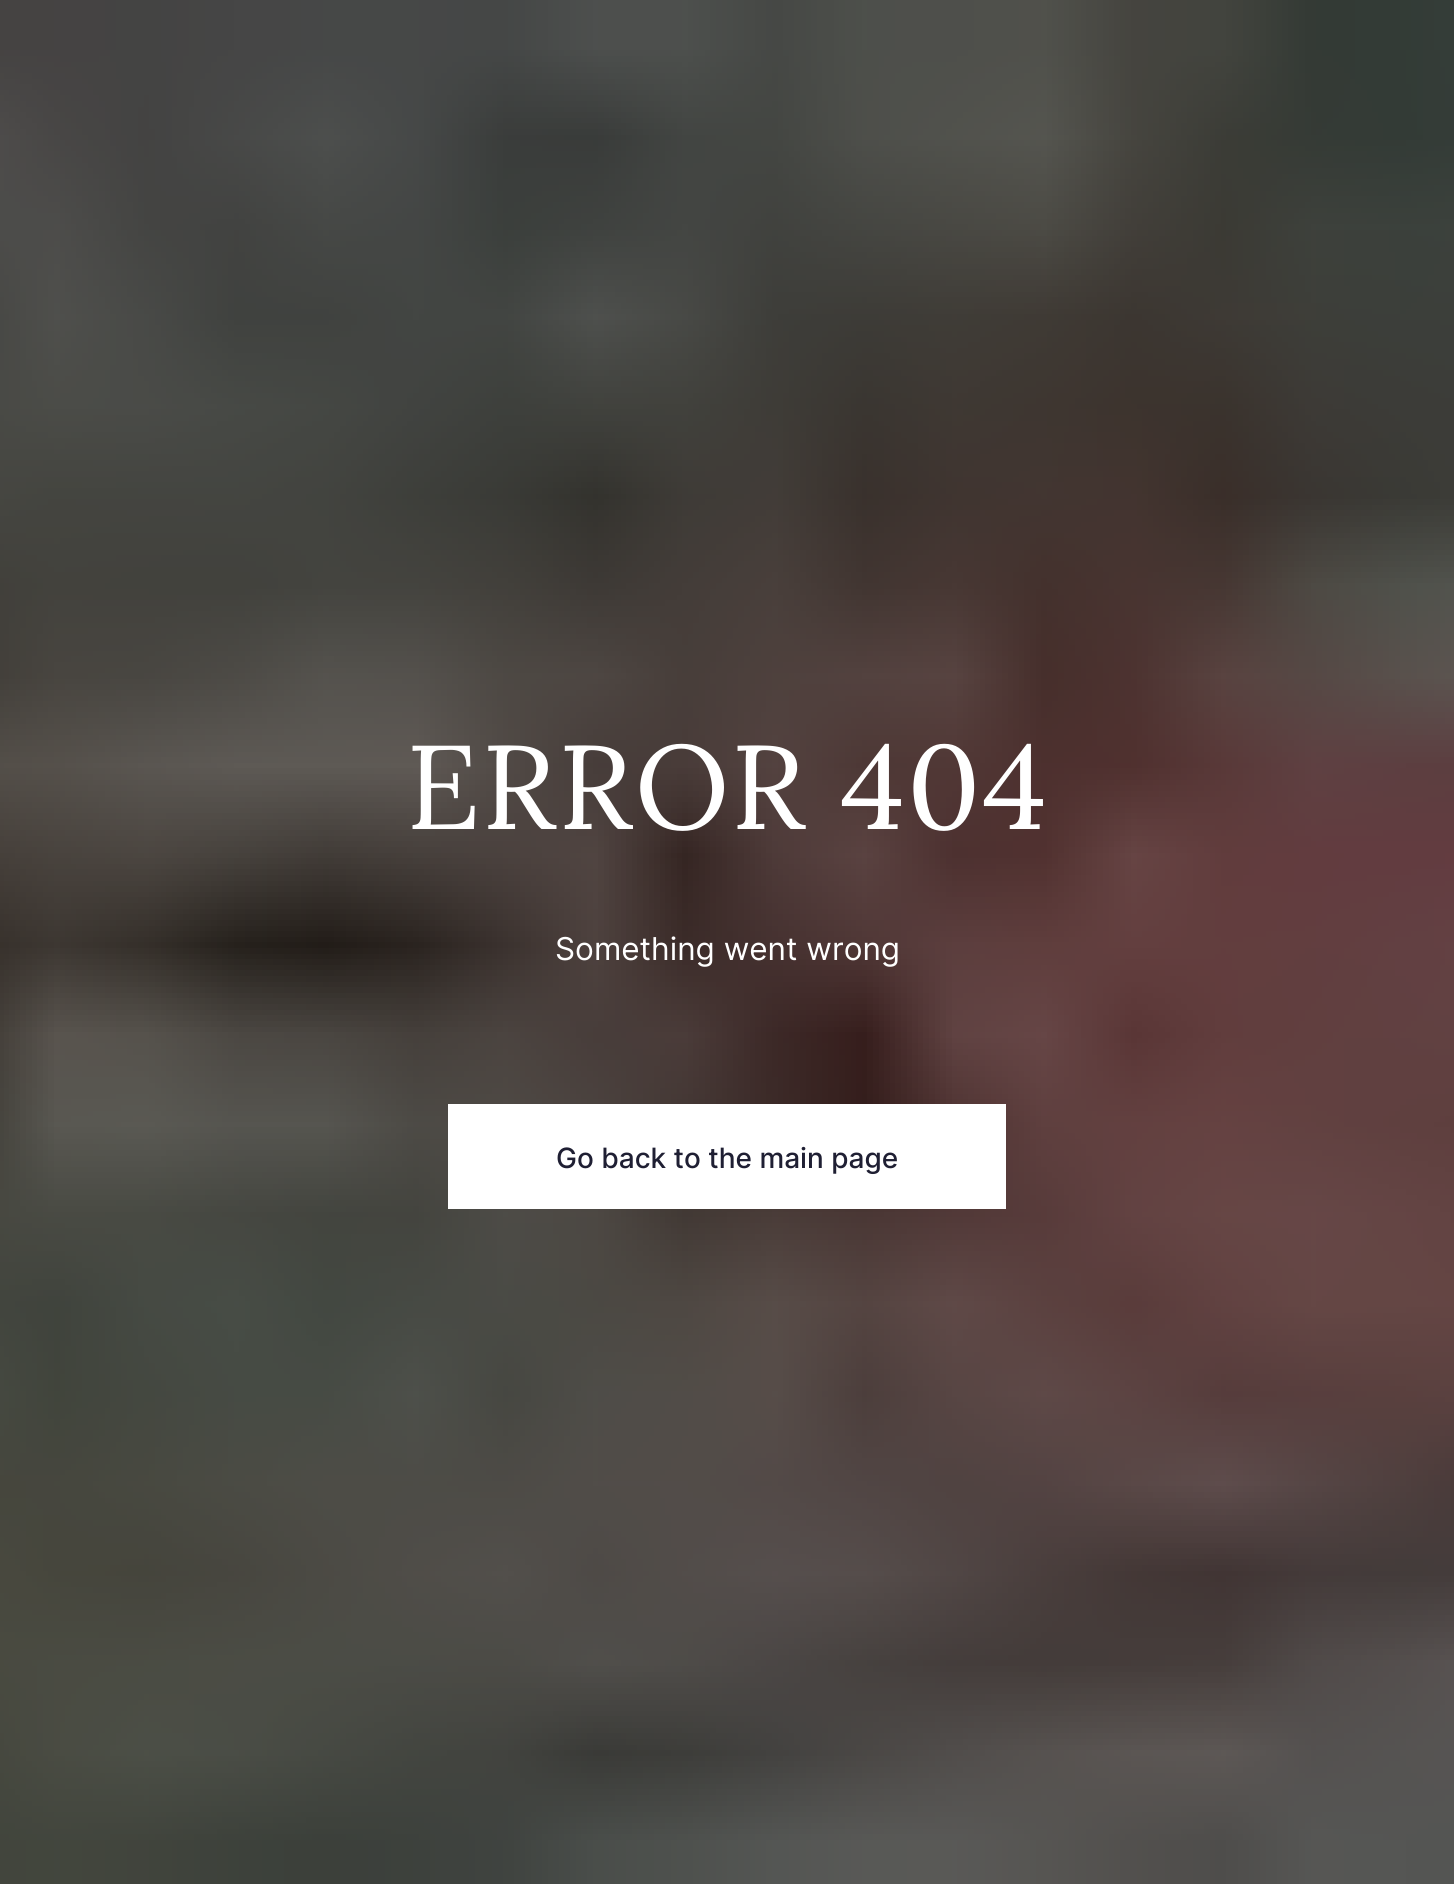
import math
import cairocffi as cairo

surface = cairo.ImageSurface(cairo.FORMAT_RGB24, 1454, 1884)
cr = cairo.Context(surface)
options = cairo.FontOptions()
options.set_hint_metrics(cairo.HINT_METRICS_OFF)
options.set_hint_style(cairo.HINT_STYLE_NONE)
cr.set_font_options(options)
cr.set_miter_limit(4)


def use_color(code):
    cr.set_source_rgb(*(v / 255 for v in bytes.fromhex(code[-6:])))


def spaced_text(x, y, s, letter, word):
    cr.move_to(x, y)
    for ch in s:
        cr.show_text(ch)
        cr.rel_move_to(letter + word * (ch == ' '), 0)


def picture(path, x, y, w, h):
    cr.save()
    cr.set_source_surface(cairo.ImageSurface.create_from_png(path), x, y)
    cr.rectangle(x, y, w, h)
    cr.fill()
    cr.restore()


use_color("#ffffff")
cr.paint()
picture("img1.png", 0, 0, 1454, 1884)
cr.select_font_face("Lora")
cr.set_font_size(119)
use_color("#ffffff")
spaced_text(406, 829, "ERROR 404", 1.75, 0)
cr.select_font_face("Inter")
cr.set_font_size(31.5)
cr.move_to(555, 960)
cr.show_text("Something went wrong")
cr.rectangle(448, 1104, 558, 105)
cr.fill()
cr.select_font_face("Inter Medium")
cr.set_font_size(28)
use_color("#1f1f33")
cr.move_to(556, 1168)
cr.show_text("Go back to the main page")
surface.write_to_png("result.png")
